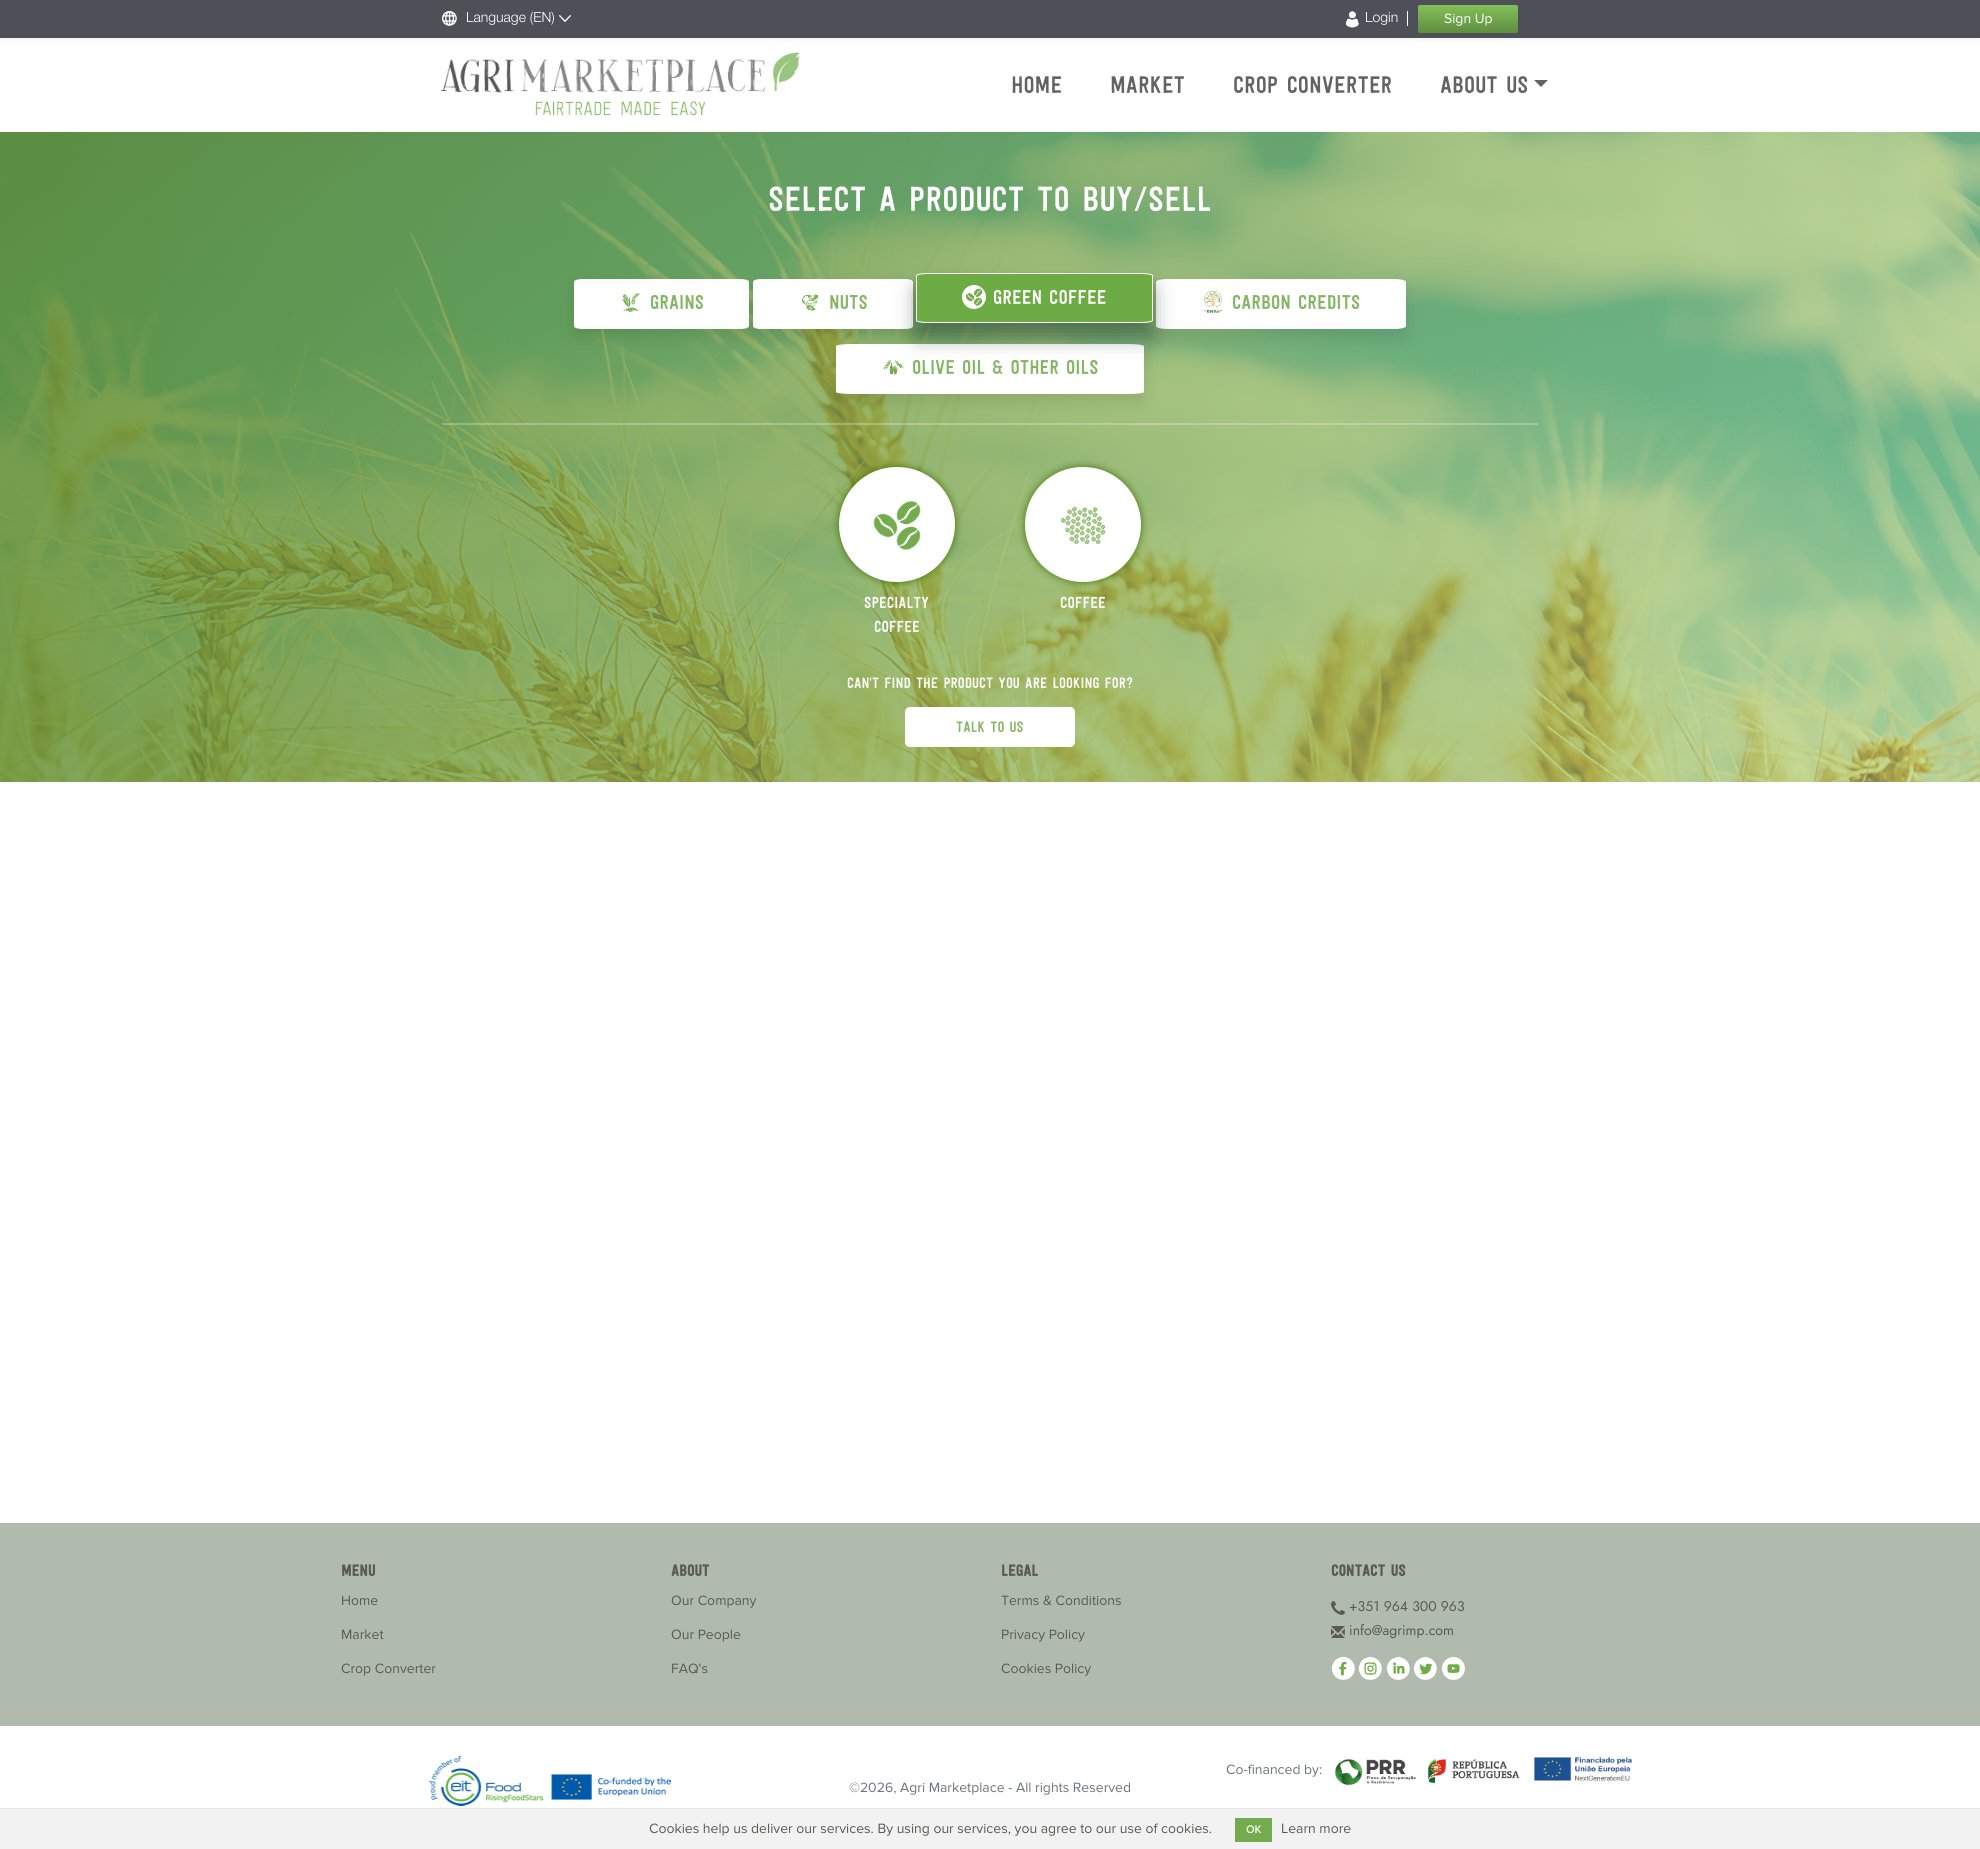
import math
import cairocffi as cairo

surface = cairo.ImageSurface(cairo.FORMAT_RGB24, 1980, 1849)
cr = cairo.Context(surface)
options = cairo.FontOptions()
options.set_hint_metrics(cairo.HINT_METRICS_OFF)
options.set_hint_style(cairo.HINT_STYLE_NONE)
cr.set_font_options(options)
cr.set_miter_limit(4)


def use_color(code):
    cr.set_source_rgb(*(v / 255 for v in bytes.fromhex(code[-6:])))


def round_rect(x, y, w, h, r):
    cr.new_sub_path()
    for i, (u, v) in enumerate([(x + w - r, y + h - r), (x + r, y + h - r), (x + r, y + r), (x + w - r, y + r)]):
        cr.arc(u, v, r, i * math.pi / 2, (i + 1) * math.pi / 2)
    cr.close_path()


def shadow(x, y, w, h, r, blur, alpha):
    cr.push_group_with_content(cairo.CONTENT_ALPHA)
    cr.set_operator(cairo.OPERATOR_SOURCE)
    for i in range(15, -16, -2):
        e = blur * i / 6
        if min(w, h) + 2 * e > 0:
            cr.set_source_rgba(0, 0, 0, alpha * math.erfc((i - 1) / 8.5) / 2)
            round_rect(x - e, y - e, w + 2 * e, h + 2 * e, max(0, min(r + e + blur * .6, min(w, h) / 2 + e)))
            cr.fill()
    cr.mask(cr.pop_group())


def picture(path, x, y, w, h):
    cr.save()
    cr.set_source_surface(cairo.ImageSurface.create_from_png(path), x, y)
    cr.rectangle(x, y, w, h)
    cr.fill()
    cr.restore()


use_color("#ffffff")
cr.paint()
use_color("#000000")
shadow(0, 2, 1980, 38, 0, 2.5, 0.05)
use_color("#4d5056")
cr.rectangle(0, 0, 1980, 38)
cr.fill()
picture("img1.png", 442, 11, 15, 15)
cr.select_font_face("Helvetica Neue Light")
cr.set_font_size(14)
use_color("#ffffff")
cr.move_to(466, 22)
cr.show_text("Language (EN)")
picture("img2.png", 559, 15, 12, 7)
picture("img3.png", 1345, 11, 14, 17)
cr.move_to(1365, 22)
cr.show_text("Login")
cr.rectangle(1407, 11, 1, 15)
cr.fill()
gradient = cairo.LinearGradient(1468, 5, 1468, 33)
gradient.add_color_stop_rgba(0, 0.514, 0.757, 0.345, 1)
gradient.add_color_stop_rgba(1, 0.376, 0.553, 0.255, 1)
cr.set_source(gradient)
round_rect(1418, 5, 100, 28, 2)
cr.fill()
cr.select_font_face("Proxima Nova")
use_color("#ffffff")
cr.move_to(1444, 23)
cr.show_text("Sign Up")
picture("img4.png", 440, 52, 360, 64)
cr.select_font_face("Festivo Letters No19")
cr.set_font_size(24)
use_color("#636363")
cr.move_to(1011, 93)
cr.show_text("HOME")
cr.move_to(1110, 93)
cr.show_text("MARKET")
cr.move_to(1233, 93)
cr.show_text("CROP CONVERTER")
cr.move_to(1440, 93)
cr.show_text("ABOUT US")
cr.new_path()
cr.move_to(1534, 80)
cr.line_to(1548, 80)
cr.line_to(1541, 87)
cr.close_path()
cr.fill()
picture("img5.png", 0, 132, 1980, 650)
cr.set_font_size(35)
use_color("#ffffff")
cr.move_to(768, 211)
cr.show_text("SELECT A PRODUCT TO BUY/SELL")
use_color("#000000")
shadow(574, 287, 175, 50, 2.5, 7.5, 0.1)
use_color("#ffffff")
cr.new_path()
cr.move_to(583, 279)
cr.line_to(740, 279)
cr.curve_to(745, 279, 749, 280, 749, 282)
cr.line_to(749, 326)
cr.curve_to(749, 328, 745, 329, 740, 329)
cr.line_to(583, 329)
cr.curve_to(578, 329, 574, 328, 574, 326)
cr.line_to(574, 282)
cr.curve_to(574, 280, 578, 279, 583, 279)
cr.close_path()
cr.fill()
picture("img6.png", 622, 292, 18, 20)
cr.set_font_size(20)
use_color("#84b562")
cr.move_to(650, 309)
cr.show_text("Grains")
use_color("#000000")
shadow(753, 287, 160, 50, 2.5, 7.5, 0.1)
use_color("#ffffff")
cr.new_path()
cr.move_to(761, 279)
cr.line_to(905, 279)
cr.curve_to(909, 279, 913, 280, 913, 282)
cr.line_to(913, 326)
cr.curve_to(913, 328, 909, 329, 905, 329)
cr.line_to(761, 329)
cr.curve_to(757, 329, 753, 328, 753, 326)
cr.line_to(753, 282)
cr.curve_to(753, 280, 757, 279, 761, 279)
cr.close_path()
cr.fill()
picture("img7.png", 802, 294, 17, 17)
use_color("#84b562")
cr.move_to(829, 309)
cr.show_text("Nuts")
use_color("#000000")
shadow(1156, 287, 250, 50, 2.5, 7.5, 0.1)
use_color("#ffffff")
cr.new_path()
cr.move_to(1168, 279)
cr.line_to(1394, 279)
cr.curve_to(1400, 279, 1406, 280, 1406, 282)
cr.line_to(1406, 326)
cr.curve_to(1406, 328, 1400, 329, 1394, 329)
cr.line_to(1168, 329)
cr.curve_to(1162, 329, 1156, 328, 1156, 326)
cr.line_to(1156, 282)
cr.curve_to(1156, 280, 1162, 279, 1168, 279)
cr.close_path()
cr.fill()
use_color("#000000")
shadow(836, 352, 308, 50, 2.5, 7.5, 0.1)
use_color("#ffffff")
cr.new_path()
cr.move_to(851, 344)
cr.line_to(1129, 344)
cr.curve_to(1137, 344, 1144, 345, 1144, 346)
cr.line_to(1144, 392)
cr.curve_to(1144, 393, 1137, 394, 1129, 394)
cr.line_to(851, 394)
cr.curve_to(843, 394, 836, 393, 836, 392)
cr.line_to(836, 346)
cr.curve_to(836, 345, 843, 344, 851, 344)
cr.close_path()
cr.fill()
picture("img10.png", 882, 359, 22, 16)
use_color("#001414")
shadow(916, 288, 237, 50, 2.5, 10, 0.4)
use_color("#6dac44")
cr.new_path()
cr.move_to(928, 273)
cr.line_to(1141, 273)
cr.curve_to(1148, 273, 1153, 274, 1153, 276)
cr.line_to(1153, 320)
cr.curve_to(1153, 322, 1148, 323, 1141, 323)
cr.line_to(928, 323)
cr.curve_to(921, 323, 916, 322, 916, 320)
cr.line_to(916, 276)
cr.curve_to(916, 274, 921, 273, 928, 273)
cr.close_path()
cr.fill()
cr.new_path()
cr.move_to(928, 273.5)
cr.line_to(1141, 273.5)
cr.curve_to(1147.5, 273.5, 1152.5, 274.5, 1152.5, 275.5)
cr.line_to(1152.5, 320.5)
cr.curve_to(1152.5, 321.5, 1147.5, 322.5, 1141, 322.5)
cr.line_to(928, 322.5)
cr.curve_to(921.5, 322.5, 916.5, 321.5, 916.5, 320.5)
cr.line_to(916.5, 275.5)
cr.curve_to(916.5, 274.5, 921.5, 273.5, 928, 273.5)
cr.close_path()
use_color("#ffffff")
cr.set_line_width(1)
cr.stroke()
cr.arc(974, 297, 12, 0, 2 * math.pi)
cr.fill()
picture("img8.png", 966, 288, 17, 18)
cr.move_to(993, 304)
cr.show_text("Green Coffee")
picture("img9.png", 1204, 291, 18, 22)
use_color("#84b562")
cr.move_to(1232, 309)
cr.show_text("Carbon Credits")
cr.move_to(912, 374)
cr.show_text("Olive Oil & Other Oils")
cr.set_source_rgba(1, 1, 1, 0.25)
cr.rectangle(442, 423, 1096, 2)
cr.fill()
use_color("#417505")
shadow(839, 467, 116, 115, 57.5, 4, 1)
use_color("#ffffff")
round_rect(839, 467, 116, 115, 57.5)
cr.fill()
picture("img11.png", 873, 501, 48, 49)
cr.set_font_size(16)
cr.move_to(864, 608)
cr.show_text("SPECIALTY")
cr.move_to(874, 632)
cr.show_text("COFFEE")
use_color("#417505")
shadow(1025, 467, 116, 115, 57.5, 4, 1)
use_color("#ffffff")
round_rect(1025, 467, 116, 115, 57.5)
cr.fill()
picture("img12.png", 1061, 506, 45, 39)
cr.move_to(1060, 608)
cr.show_text("COFFEE")
cr.set_font_size(15)
cr.move_to(847, 688)
cr.show_text("CAN'T FIND THE PRODUCT YOU ARE LOOKING FOR?")
round_rect(905.5, 707.5, 169, 39, 4.5)
cr.fill_preserve()
cr.stroke()
use_color("#84b562")
cr.move_to(956, 732)
cr.show_text("Talk To Us")
use_color("#b1bbad")
cr.rectangle(0, 1523, 1980, 203)
cr.fill()
cr.select_font_face("Festivo Letters No19", cairo.FONT_SLANT_NORMAL, cairo.FONT_WEIGHT_BOLD)
cr.set_font_size(16)
use_color("#5a5956")
cr.move_to(341, 1576)
cr.show_text("Menu")
cr.select_font_face("Proxima Nova")
cr.set_font_size(14)
cr.move_to(341, 1605)
cr.show_text("Home")
cr.move_to(341, 1639)
cr.show_text("Market")
cr.move_to(341, 1673)
cr.show_text("Crop Converter")
cr.select_font_face("Festivo Letters No19", cairo.FONT_SLANT_NORMAL, cairo.FONT_WEIGHT_BOLD)
cr.set_font_size(16)
cr.move_to(671, 1576)
cr.show_text("About")
cr.select_font_face("Proxima Nova")
cr.set_font_size(14)
cr.move_to(671, 1605)
cr.show_text("Our Company")
cr.move_to(671, 1639)
cr.show_text("Our People")
cr.move_to(671, 1673)
cr.show_text("FAQ's")
cr.select_font_face("Festivo Letters No19", cairo.FONT_SLANT_NORMAL, cairo.FONT_WEIGHT_BOLD)
cr.set_font_size(16)
cr.move_to(1001, 1576)
cr.show_text("Legal")
cr.select_font_face("Proxima Nova")
cr.set_font_size(14)
cr.move_to(1001, 1605)
cr.show_text("Terms & Conditions")
cr.move_to(1001, 1639)
cr.show_text("Privacy Policy")
cr.move_to(1001, 1673)
cr.show_text("Cookies Policy")
cr.select_font_face("Festivo Letters No19", cairo.FONT_SLANT_NORMAL, cairo.FONT_WEIGHT_BOLD)
cr.set_font_size(16)
cr.move_to(1331, 1576)
cr.show_text("Contact Us")
picture("img13.png", 1331, 1601, 14, 14)
cr.select_font_face("Jost")
cr.set_font_size(14)
cr.move_to(1349, 1611)
cr.show_text("+351 964 300 963")
picture("img14.png", 1331, 1626, 14, 12)
cr.move_to(1349, 1635)
cr.show_text("info@agrimp.com")
picture("img15.png", 1331, 1656, 24, 24)
picture("img16.png", 1358, 1656, 24, 24)
picture("img17.png", 1386, 1657, 24, 23)
picture("img18.png", 1413, 1657, 24, 23)
picture("img19.png", 1441, 1656, 24, 24)
picture("img20.png", 429, 1756, 242, 50)
cr.select_font_face("Proxima Nova")
use_color("#6c757d")
cr.move_to(1226, 1774)
cr.show_text("Co-financed by:")
picture("img21.png", 1334, 1757, 298, 29)
cr.move_to(849, 1792)
cr.show_text("©2026, Agri Marketplace - All rights Reserved")
use_color("#f2f2f2")
cr.rectangle(0, 1809, 1980, 40)
cr.fill()
use_color("#e4e4e4")
cr.rectangle(0, 1808, 1980, 1)
cr.fill()
use_color("#5a5956")
cr.move_to(649, 1833)
cr.show_text("Cookies help us deliver our services. By using our services, you agree to our use of cookies.")
use_color("#74ab4e")
cr.rectangle(1235, 1818, 37, 24)
cr.fill()
cr.select_font_face("Proxima Nova", cairo.FONT_SLANT_NORMAL, cairo.FONT_WEIGHT_BOLD)
cr.set_font_size(11)
use_color("#ffffff")
cr.move_to(1246, 1833)
cr.show_text("OK")
cr.select_font_face("Proxima Nova")
cr.set_font_size(14)
use_color("#5a5956")
cr.move_to(1281, 1833)
cr.show_text("Learn more")
surface.write_to_png("result.png")
